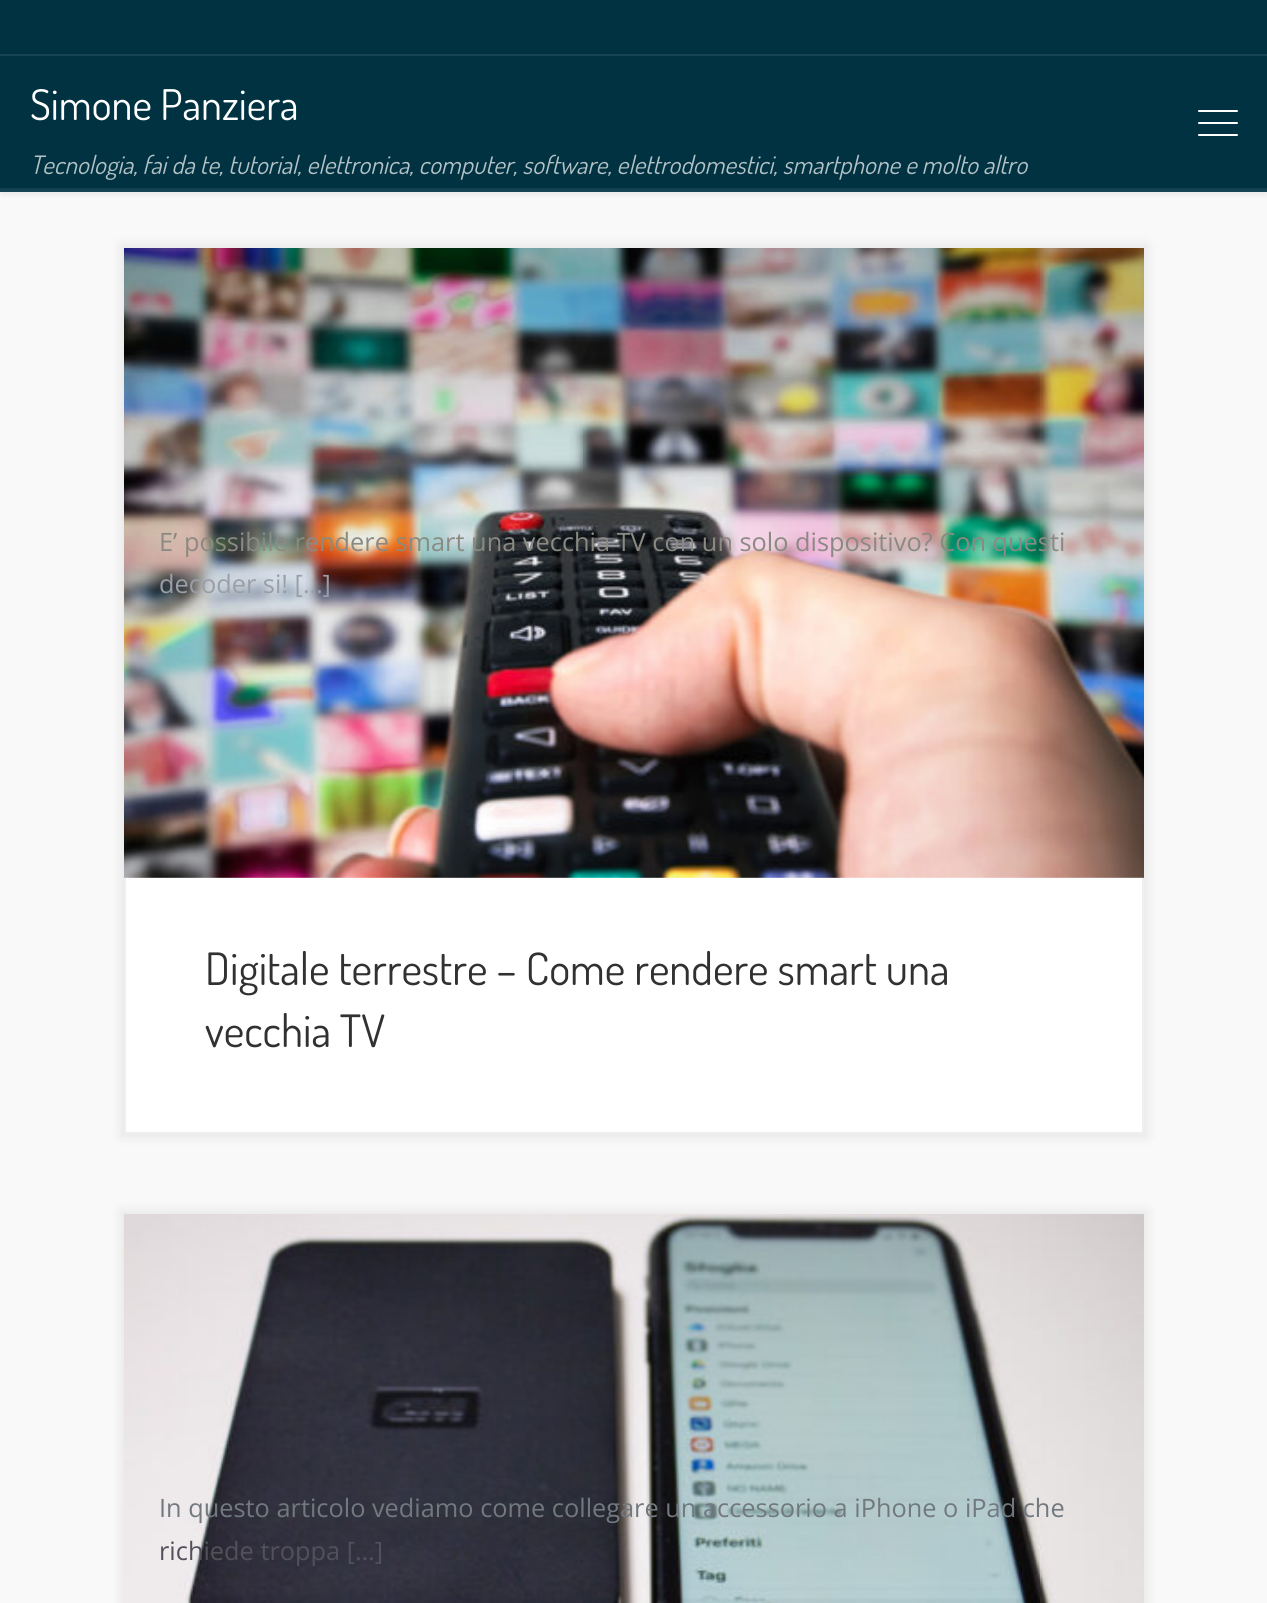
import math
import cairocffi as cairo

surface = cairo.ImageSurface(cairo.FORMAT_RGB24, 1267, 1603)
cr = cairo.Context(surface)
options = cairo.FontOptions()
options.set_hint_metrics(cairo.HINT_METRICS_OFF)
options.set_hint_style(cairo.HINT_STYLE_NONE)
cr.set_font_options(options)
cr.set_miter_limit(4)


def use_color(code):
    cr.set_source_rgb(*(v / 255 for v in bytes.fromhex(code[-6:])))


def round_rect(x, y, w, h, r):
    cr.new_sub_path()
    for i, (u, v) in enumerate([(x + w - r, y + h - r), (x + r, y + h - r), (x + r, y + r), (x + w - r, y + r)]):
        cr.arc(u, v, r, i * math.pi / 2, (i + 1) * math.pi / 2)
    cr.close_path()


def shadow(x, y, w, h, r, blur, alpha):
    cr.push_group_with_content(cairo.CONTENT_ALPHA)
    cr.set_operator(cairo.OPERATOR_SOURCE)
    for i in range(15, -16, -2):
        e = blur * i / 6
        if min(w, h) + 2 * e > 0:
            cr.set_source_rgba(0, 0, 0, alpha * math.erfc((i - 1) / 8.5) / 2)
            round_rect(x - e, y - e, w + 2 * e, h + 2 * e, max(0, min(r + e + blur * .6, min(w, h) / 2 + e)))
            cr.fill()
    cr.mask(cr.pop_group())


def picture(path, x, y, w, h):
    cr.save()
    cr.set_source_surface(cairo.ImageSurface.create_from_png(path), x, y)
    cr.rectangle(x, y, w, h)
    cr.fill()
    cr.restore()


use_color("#f9f9f9")
cr.paint()
use_color("#666666")
shadow(0, 4, 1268, 192, 0, 2, 0.08)
use_color("#003242")
cr.rectangle(0, 0, 1267, 188)
cr.fill()
use_color("#174453")
cr.rectangle(0, 190, 1267, 2)
cr.fill()
cr.rectangle(0, 54, 1267, 2)
cr.fill()
cr.select_font_face("Dosis")
cr.set_font_size(42.25)
use_color("#ffffff")
cr.move_to(30, 120)
cr.show_text("Simone Panziera")
cr.select_font_face("Dosis", cairo.FONT_SLANT_ITALIC)
cr.set_font_size(25.35)
use_color("#b3c2c6")
cr.move_to(30, 174)
cr.show_text("Tecnologia, fai da te, tutorial, elettronica, computer, software, elettrodomestici, smartphone e molto altro")
use_color("#ffffff")
round_rect(1198, 110, 40, 2, 1)
cr.fill()
round_rect(1198, 122, 40, 2, 1)
cr.fill()
round_rect(1198, 134, 40, 2, 1)
cr.fill()
use_color("#134150")
cr.rectangle(0, 188, 1267, 2)
cr.fill()
use_color("#000000")
shadow(120, 244, 1028, 894, 0, 6, 0.07)
use_color("#ffffff")
cr.rectangle(126, 877, 1016, 255)
cr.fill()
cr.rectangle(125, 249, 1018, 884)
use_color("#efefef")
cr.stroke()
picture("img1.png", 124, 248, 1020, 630)
cr.select_font_face("Open Sans")
use_color("#8b8a82")
cr.move_to(159, 551)
cr.show_text("E’ possibile rendere smart una vecchia TV con un solo dispositivo? Con questi")
use_color("#9a9fa7")
cr.move_to(159, 593)
cr.show_text("decoder si! […]")
cr.select_font_face("Dosis")
cr.set_font_size(44.6)
use_color("#313131")
cr.move_to(205, 985)
cr.show_text("Digitale terrestre – Come rendere smart una")
cr.move_to(205, 1047)
cr.show_text("vecchia TV")
use_color("#000000")
shadow(120, 1210, 1028, 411, 0, 6, 0.07)
picture("img2.png", 124, 1214, 1020, 389)
cr.select_font_face("Open Sans")
cr.set_font_size(25.35)
use_color("#71797f")
cr.move_to(159, 1517)
cr.show_text("In questo articolo vediamo come collegare un accessorio a iPhone o iPad che")
use_color("#52505b")
cr.move_to(159, 1560)
cr.show_text("richiede troppa […]")
surface.write_to_png("result.png")
